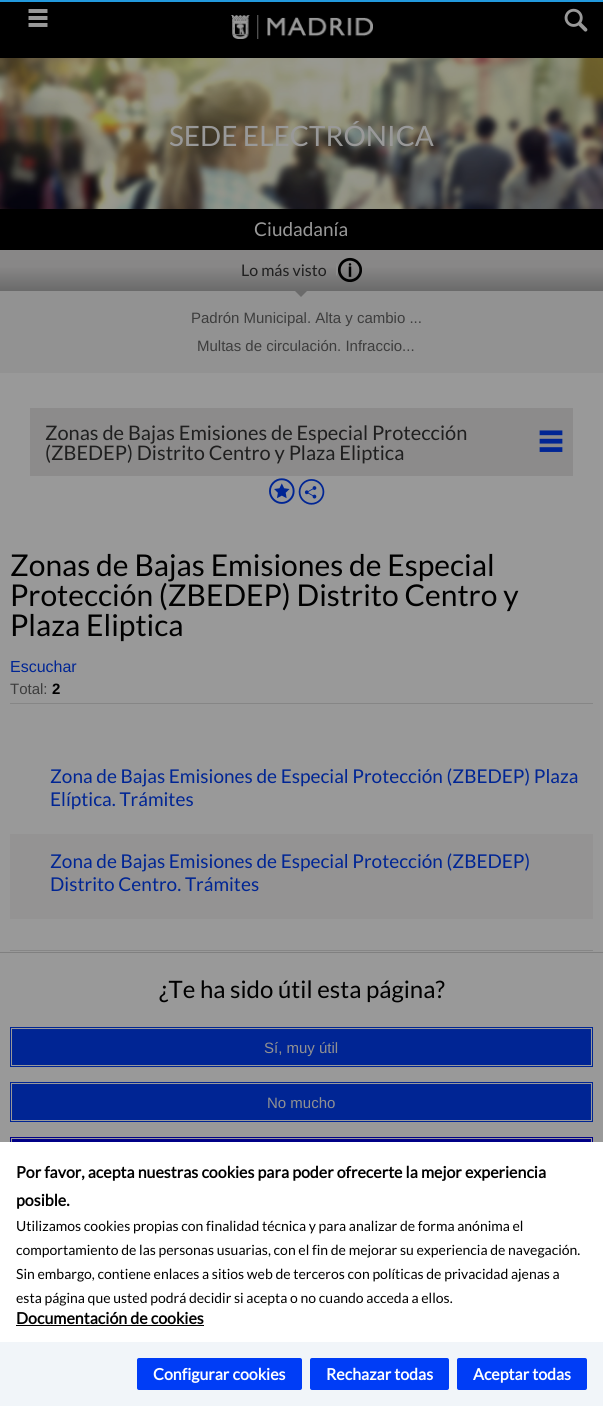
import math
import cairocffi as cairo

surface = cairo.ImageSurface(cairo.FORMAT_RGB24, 603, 1406)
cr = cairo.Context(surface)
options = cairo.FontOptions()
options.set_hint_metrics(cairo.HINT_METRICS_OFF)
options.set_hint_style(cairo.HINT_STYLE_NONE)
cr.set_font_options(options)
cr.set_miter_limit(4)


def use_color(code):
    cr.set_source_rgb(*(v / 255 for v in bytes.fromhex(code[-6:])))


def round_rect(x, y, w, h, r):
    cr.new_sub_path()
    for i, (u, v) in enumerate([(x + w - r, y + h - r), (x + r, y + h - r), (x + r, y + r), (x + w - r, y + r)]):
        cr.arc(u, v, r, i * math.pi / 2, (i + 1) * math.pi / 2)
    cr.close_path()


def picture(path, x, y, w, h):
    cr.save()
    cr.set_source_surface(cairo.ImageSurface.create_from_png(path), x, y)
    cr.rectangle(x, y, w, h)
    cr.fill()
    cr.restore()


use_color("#999999")
cr.paint()
use_color("#2299dd")
cr.rectangle(0, 0, 603, 2)
cr.fill()
use_color("#000000")
cr.rectangle(0, 2, 603, 56)
cr.fill()
picture("img1.png", 28, 9, 20, 18)
picture("img2.png", 231, 15, 142, 24)
picture("img3.png", 564, 8, 24, 24)
picture("img4.png", 0, 58, 603, 151)
cr.select_font_face("Lato")
cr.set_font_size(28)
use_color("#999999")
cr.move_to(169, 146)
cr.show_text("SEDE ELECTRÓNICA")
use_color("#000000")
cr.rectangle(0, 209, 603, 41)
cr.fill()
cr.set_font_size(19)
use_color("#999999")
cr.move_to(254, 236)
cr.show_text("Ciudadanía")
use_color("#929292")
cr.rectangle(0, 291, 603, 82)
cr.fill()
gradient = cairo.LinearGradient(302, 250, 302, 291)
gradient.add_color_stop_rgba(0, 0.533, 0.529, 0.529, 1)
gradient.add_color_stop_rgba(0.4, 0.533, 0.529, 0.529, 1)
gradient.add_color_stop_rgba(1, 0.416, 0.416, 0.416, 1)
cr.set_source(gradient)
cr.rectangle(0, 250, 603, 41)
cr.fill()
cr.set_font_size(16)
use_color("#1f1f1f")
cr.move_to(241, 276)
cr.show_text("Lo más visto")
picture("img5.png", 336, 257, 26, 26)
use_color("#6a6a6a")
cr.new_path()
cr.move_to(295, 291)
cr.line_to(307, 291)
cr.line_to(301, 297)
cr.close_path()
cr.fill()
cr.select_font_face("Liberation Sans")
cr.set_font_size(15)
use_color("#3d3d3d")
cr.move_to(191, 323)
cr.show_text("Padrón Municipal. Alta y cambio ...")
cr.move_to(197, 351)
cr.show_text("Multas de circulación. Infraccio...")
use_color("#8c8b8b")
cr.rectangle(30, 408, 543, 68)
cr.fill()
cr.select_font_face("Lato")
cr.set_font_size(20)
use_color("#1f1f1f")
cr.move_to(45, 440)
cr.show_text("Zonas de Bajas Emisiones de Especial Protección")
picture("img6.png", 539, 430, 24, 22)
cr.move_to(45, 460)
cr.show_text("(ZBEDEP) Distrito Centro y Plaza Eliptica")
picture("img7.png", 269, 478, 26, 26)
picture("img8.png", 298, 479, 27, 26)
cr.set_font_size(30)
use_color("#000000")
cr.move_to(10, 576)
cr.show_text("Zonas de Bajas Emisiones de Especial")
cr.move_to(10, 606)
cr.show_text("Protección (ZBEDEP) Distrito Centro y")
cr.move_to(10, 636)
cr.show_text("Plaza Eliptica")
cr.select_font_face("Liberation Sans")
cr.set_font_size(16)
use_color("#002594")
cr.move_to(10, 672)
cr.show_text("Escuchar")
use_color("#868686")
cr.rectangle(10, 703, 583, 1)
cr.fill()
cr.set_font_size(15)
use_color("#3d3d3d")
cr.move_to(10, 694)
cr.show_text("Total:")
cr.select_font_face("Liberation Sans", cairo.FONT_SLANT_NORMAL, cairo.FONT_WEIGHT_BOLD)
use_color("#000000")
cr.move_to(52, 694)
cr.show_text("2")
cr.select_font_face("Lato")
cr.set_font_size(19)
use_color("#002594")
cr.move_to(50, 783)
cr.show_text("Zona de Bajas Emisiones de Especial Protección (ZBEDEP) Plaza")
cr.move_to(50, 806)
cr.show_text("Elíptica. Trámites")
use_color("#949393")
cr.rectangle(10, 834, 583, 85)
cr.fill()
use_color("#002594")
cr.move_to(50, 868)
cr.show_text("Zona de Bajas Emisiones de Especial Protección (ZBEDEP)")
cr.move_to(50, 891)
cr.show_text("Distrito Centro. Trámites")
use_color("#868686")
cr.rectangle(10, 950, 583, 1)
cr.fill()
use_color("#808080")
cr.rectangle(0, 952, 603, 1)
cr.fill()
cr.set_font_size(24)
use_color("#000000")
cr.move_to(159, 998)
cr.show_text("¿Te ha sido útil esta página?")
use_color("#002594")
cr.rectangle(10, 1027, 583, 40)
cr.fill()
cr.rectangle(11.5, 1028.5, 580, 37)
use_color("#999999")
cr.set_line_width(1)
cr.stroke()
cr.select_font_face("Liberation Sans")
cr.set_font_size(15)
use_color("#919191")
cr.move_to(264, 1053)
cr.show_text("Sí, muy útil")
use_color("#002594")
cr.rectangle(10, 1082, 583, 40)
cr.fill()
cr.rectangle(11.5, 1083.5, 580, 37)
use_color("#999999")
cr.stroke()
use_color("#919191")
cr.move_to(267, 1108)
cr.show_text("No mucho")
use_color("#000087")
cr.rectangle(10, 1137, 583, 5)
cr.fill()
cr.rectangle(11.5, 1138.5, 580, 37)
use_color("#999999")
cr.stroke()
use_color("#ffffff")
cr.rectangle(0, 1142, 603, 200)
cr.fill()
cr.select_font_face("Lato", cairo.FONT_SLANT_NORMAL, cairo.FONT_WEIGHT_BOLD)
cr.set_font_size(16)
use_color("#000000")
cr.move_to(16, 1178)
cr.show_text("Por favor, acepta nuestras cookies para poder ofrecerte la mejor experiencia")
cr.move_to(16, 1206)
cr.show_text("posible.")
cr.select_font_face("Lato")
cr.set_font_size(14)
cr.move_to(16, 1231)
cr.show_text("Utilizamos cookies propias con finalidad técnica y para analizar de forma anónima el")
cr.move_to(16, 1255)
cr.show_text("comportamiento de las personas usuarias, con el fin de mejorar su experiencia de navegación.")
cr.move_to(16, 1279)
cr.show_text("Sin embargo, contiene enlaces a sitios web de terceros con políticas de privacidad ajenas a")
cr.move_to(16, 1303)
cr.show_text("esta página que usted podrá decidir si acepta o no cuando acceda a ellos.")
cr.select_font_face("Lato", cairo.FONT_SLANT_NORMAL, cairo.FONT_WEIGHT_BOLD)
cr.set_font_size(16)
cr.move_to(16, 1324)
cr.show_text("Documentación de cookies")
cr.rectangle(16, 1325, 188, 1)
cr.fill()
use_color("#f1f5f9")
cr.rectangle(0, 1342, 603, 64)
cr.fill()
use_color("#003df6")
round_rect(137, 1358, 165, 32, 2)
cr.fill()
use_color("#ffffff")
cr.move_to(153, 1380)
cr.show_text("Configurar cookies")
use_color("#003df6")
round_rect(310, 1358, 139, 32, 2)
cr.fill()
use_color("#ffffff")
cr.move_to(326, 1380)
cr.show_text("Rechazar todas")
use_color("#003df6")
round_rect(457, 1358, 130, 32, 2)
cr.fill()
use_color("#ffffff")
cr.move_to(473, 1380)
cr.show_text("Aceptar todas")
surface.write_to_png("result.png")
